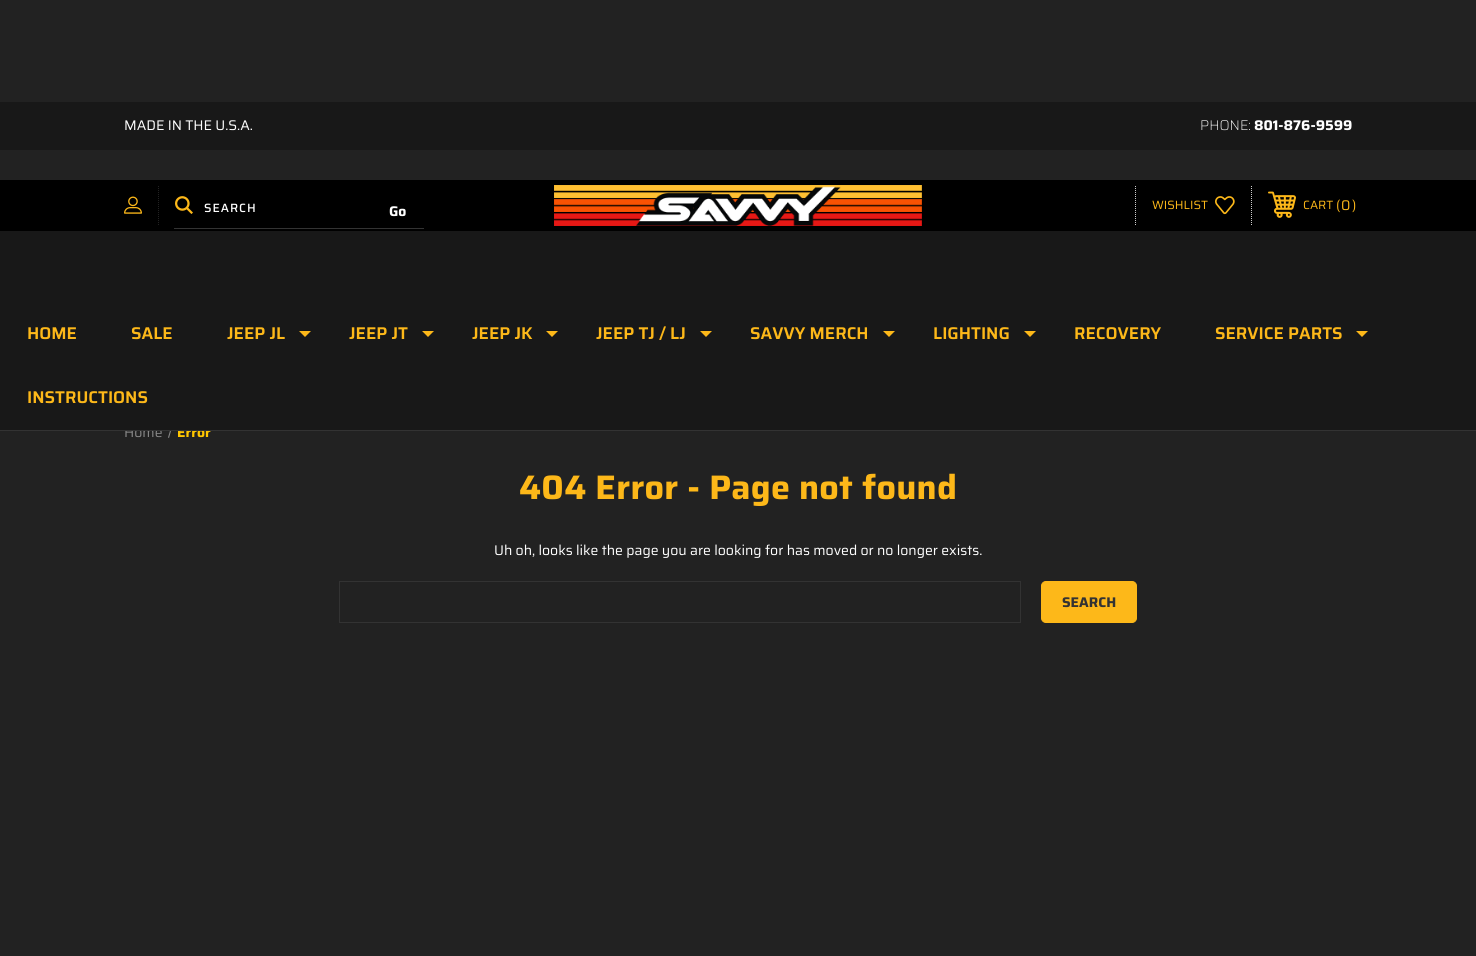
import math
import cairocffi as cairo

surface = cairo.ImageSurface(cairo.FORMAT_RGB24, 1476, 956)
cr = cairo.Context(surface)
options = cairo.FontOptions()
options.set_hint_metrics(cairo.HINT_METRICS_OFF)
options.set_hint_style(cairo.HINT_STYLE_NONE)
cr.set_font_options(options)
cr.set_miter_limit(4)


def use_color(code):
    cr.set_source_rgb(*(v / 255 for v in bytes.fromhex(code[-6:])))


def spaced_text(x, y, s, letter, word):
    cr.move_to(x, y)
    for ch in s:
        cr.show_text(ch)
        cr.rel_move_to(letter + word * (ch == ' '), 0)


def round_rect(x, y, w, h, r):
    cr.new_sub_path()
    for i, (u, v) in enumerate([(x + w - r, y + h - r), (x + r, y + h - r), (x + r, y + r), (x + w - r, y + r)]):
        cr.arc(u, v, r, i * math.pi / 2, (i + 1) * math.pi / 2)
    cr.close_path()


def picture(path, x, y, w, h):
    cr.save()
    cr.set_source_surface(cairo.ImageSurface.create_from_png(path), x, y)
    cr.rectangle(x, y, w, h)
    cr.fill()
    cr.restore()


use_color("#222222")
cr.paint()
use_color("#181818")
cr.rectangle(0, 102, 1476, 48)
cr.fill()
cr.select_font_face("Saira")
cr.set_font_size(14)
use_color("#ffffff")
cr.move_to(124, 130)
cr.show_text("MADE IN THE U.S.A.")
cr.select_font_face("Saira ExtraLight")
cr.move_to(1200, 130)
cr.show_text("PHONE:")
cr.select_font_face("Saira", cairo.FONT_SLANT_NORMAL, cairo.FONT_WEIGHT_BOLD)
cr.move_to(1254, 130)
cr.show_text("801-876-9599")
use_color("#000000")
cr.rectangle(0, 180, 1476, 51)
cr.fill()
cr.select_font_face("Saira")
use_color("#888888")
cr.move_to(124, 437)
cr.show_text("Home")
cr.new_path()
cr.move_to(171, 427.5)
cr.line_to(172, 427.5)
cr.line_to(169, 438)
cr.line_to(168, 437.5)
cr.close_path()
cr.fill()
cr.select_font_face("Saira", cairo.FONT_SLANT_NORMAL, cairo.FONT_WEIGHT_BOLD)
use_color("#ffc600")
cr.move_to(177, 437)
cr.show_text("Error")
use_color("#333333")
cr.rectangle(0, 430, 1476, 1)
cr.fill()
picture("img1.png", 124, 196, 18, 18)
cr.new_path()
cr.move_to(158.5, 186)
cr.line_to(158.5, 225)
use_color("#222222")
cr.set_line_width(1)
cr.set_dash([1, 1])
cr.stroke()
picture("img2.png", 175, 196, 18, 18)
use_color("#333333")
cr.rectangle(174, 228, 250, 1)
cr.fill()
cr.select_font_face("Saira Medium")
cr.set_font_size(12)
use_color("#ffffff")
spaced_text(204, 212, "SEARCH", 1, 0)
cr.select_font_face("Saira", cairo.FONT_SLANT_NORMAL, cairo.FONT_WEIGHT_BOLD)
cr.set_font_size(14)
cr.move_to(389, 216)
cr.show_text("Go")
picture("img3.png", 554, 185, 368, 41)
cr.new_path()
cr.move_to(1251.5, 186)
cr.line_to(1251.5, 225)
use_color("#cccccc")
cr.stroke()
cr.new_path()
cr.move_to(1135.5, 186)
cr.line_to(1135.5, 225)
cr.stroke()
cr.select_font_face("Saira")
cr.set_font_size(12)
use_color("#fdb819")
cr.move_to(1152, 209)
cr.show_text("WISHLIST")
picture("img4.png", 1215, 196, 20, 19)
picture("img5.png", 1268, 191, 28, 27)
cr.move_to(1303, 209)
cr.show_text("CART")
cr.set_font_size(14)
cr.move_to(1336, 210)
cr.show_text("(")
cr.move_to(1341, 210)
cr.show_text("0")
cr.move_to(1352, 210)
cr.show_text(")")
use_color("#181818")
cr.rectangle(0, 231, 1476, 199)
cr.fill()
cr.select_font_face("Saira SemiBold")
cr.set_font_size(17)
use_color("#fdb819")
cr.move_to(27, 339)
cr.show_text("HOME")
cr.move_to(131, 339)
cr.show_text("SALE")
cr.move_to(227, 339)
cr.show_text("JEEP JL")
cr.new_path()
cr.move_to(299, 331)
cr.line_to(305, 337)
cr.line_to(311, 331)
cr.close_path()
cr.fill()
cr.move_to(349, 339)
cr.show_text("JEEP JT")
cr.new_path()
cr.move_to(422, 331)
cr.line_to(428, 337)
cr.line_to(434, 331)
cr.close_path()
cr.fill()
cr.move_to(472, 339)
cr.show_text("JEEP JK")
cr.new_path()
cr.move_to(546, 331)
cr.line_to(552, 337)
cr.line_to(558, 331)
cr.close_path()
cr.fill()
cr.move_to(596, 339)
cr.show_text("JEEP TJ / LJ")
cr.new_path()
cr.move_to(700, 331)
cr.line_to(706, 337)
cr.line_to(712, 331)
cr.close_path()
cr.fill()
cr.move_to(750, 339)
cr.show_text("SAVVY MERCH")
cr.new_path()
cr.move_to(883, 331)
cr.line_to(889, 337)
cr.line_to(895, 331)
cr.close_path()
cr.fill()
cr.move_to(933, 339)
cr.show_text("LIGHTING")
cr.new_path()
cr.move_to(1024, 331)
cr.line_to(1030, 337)
cr.line_to(1036, 331)
cr.close_path()
cr.fill()
cr.move_to(1074, 339)
cr.show_text("RECOVERY")
cr.move_to(1215, 339)
cr.show_text("SERVICE PARTS")
cr.new_path()
cr.move_to(1356, 331)
cr.line_to(1362, 337)
cr.line_to(1368, 331)
cr.close_path()
cr.fill()
cr.move_to(27, 403)
cr.show_text("INSTRUCTIONS")
cr.select_font_face("Saira", cairo.FONT_SLANT_NORMAL, cairo.FONT_WEIGHT_BOLD)
cr.set_font_size(34)
spaced_text(519, 499, "404 Error - Page not found", 0.25, 0)
cr.select_font_face("Saira")
cr.set_font_size(14)
use_color("#ffffff")
cr.move_to(494, 555)
cr.show_text("Uh oh, looks like the page you are looking for has moved or no longer exists.")
cr.rectangle(339.5, 581.5, 681, 41)
use_color("#333333")
cr.set_dash([])
cr.stroke()
use_color("#fdb819")
round_rect(1041.5, 581.5, 95, 41, 4.5)
cr.fill_preserve()
cr.stroke()
cr.select_font_face("Saira", cairo.FONT_SLANT_NORMAL, cairo.FONT_WEIGHT_BOLD)
use_color("#333333")
cr.move_to(1062, 607)
cr.show_text("SEARCH")
surface.write_to_png("result.png")
